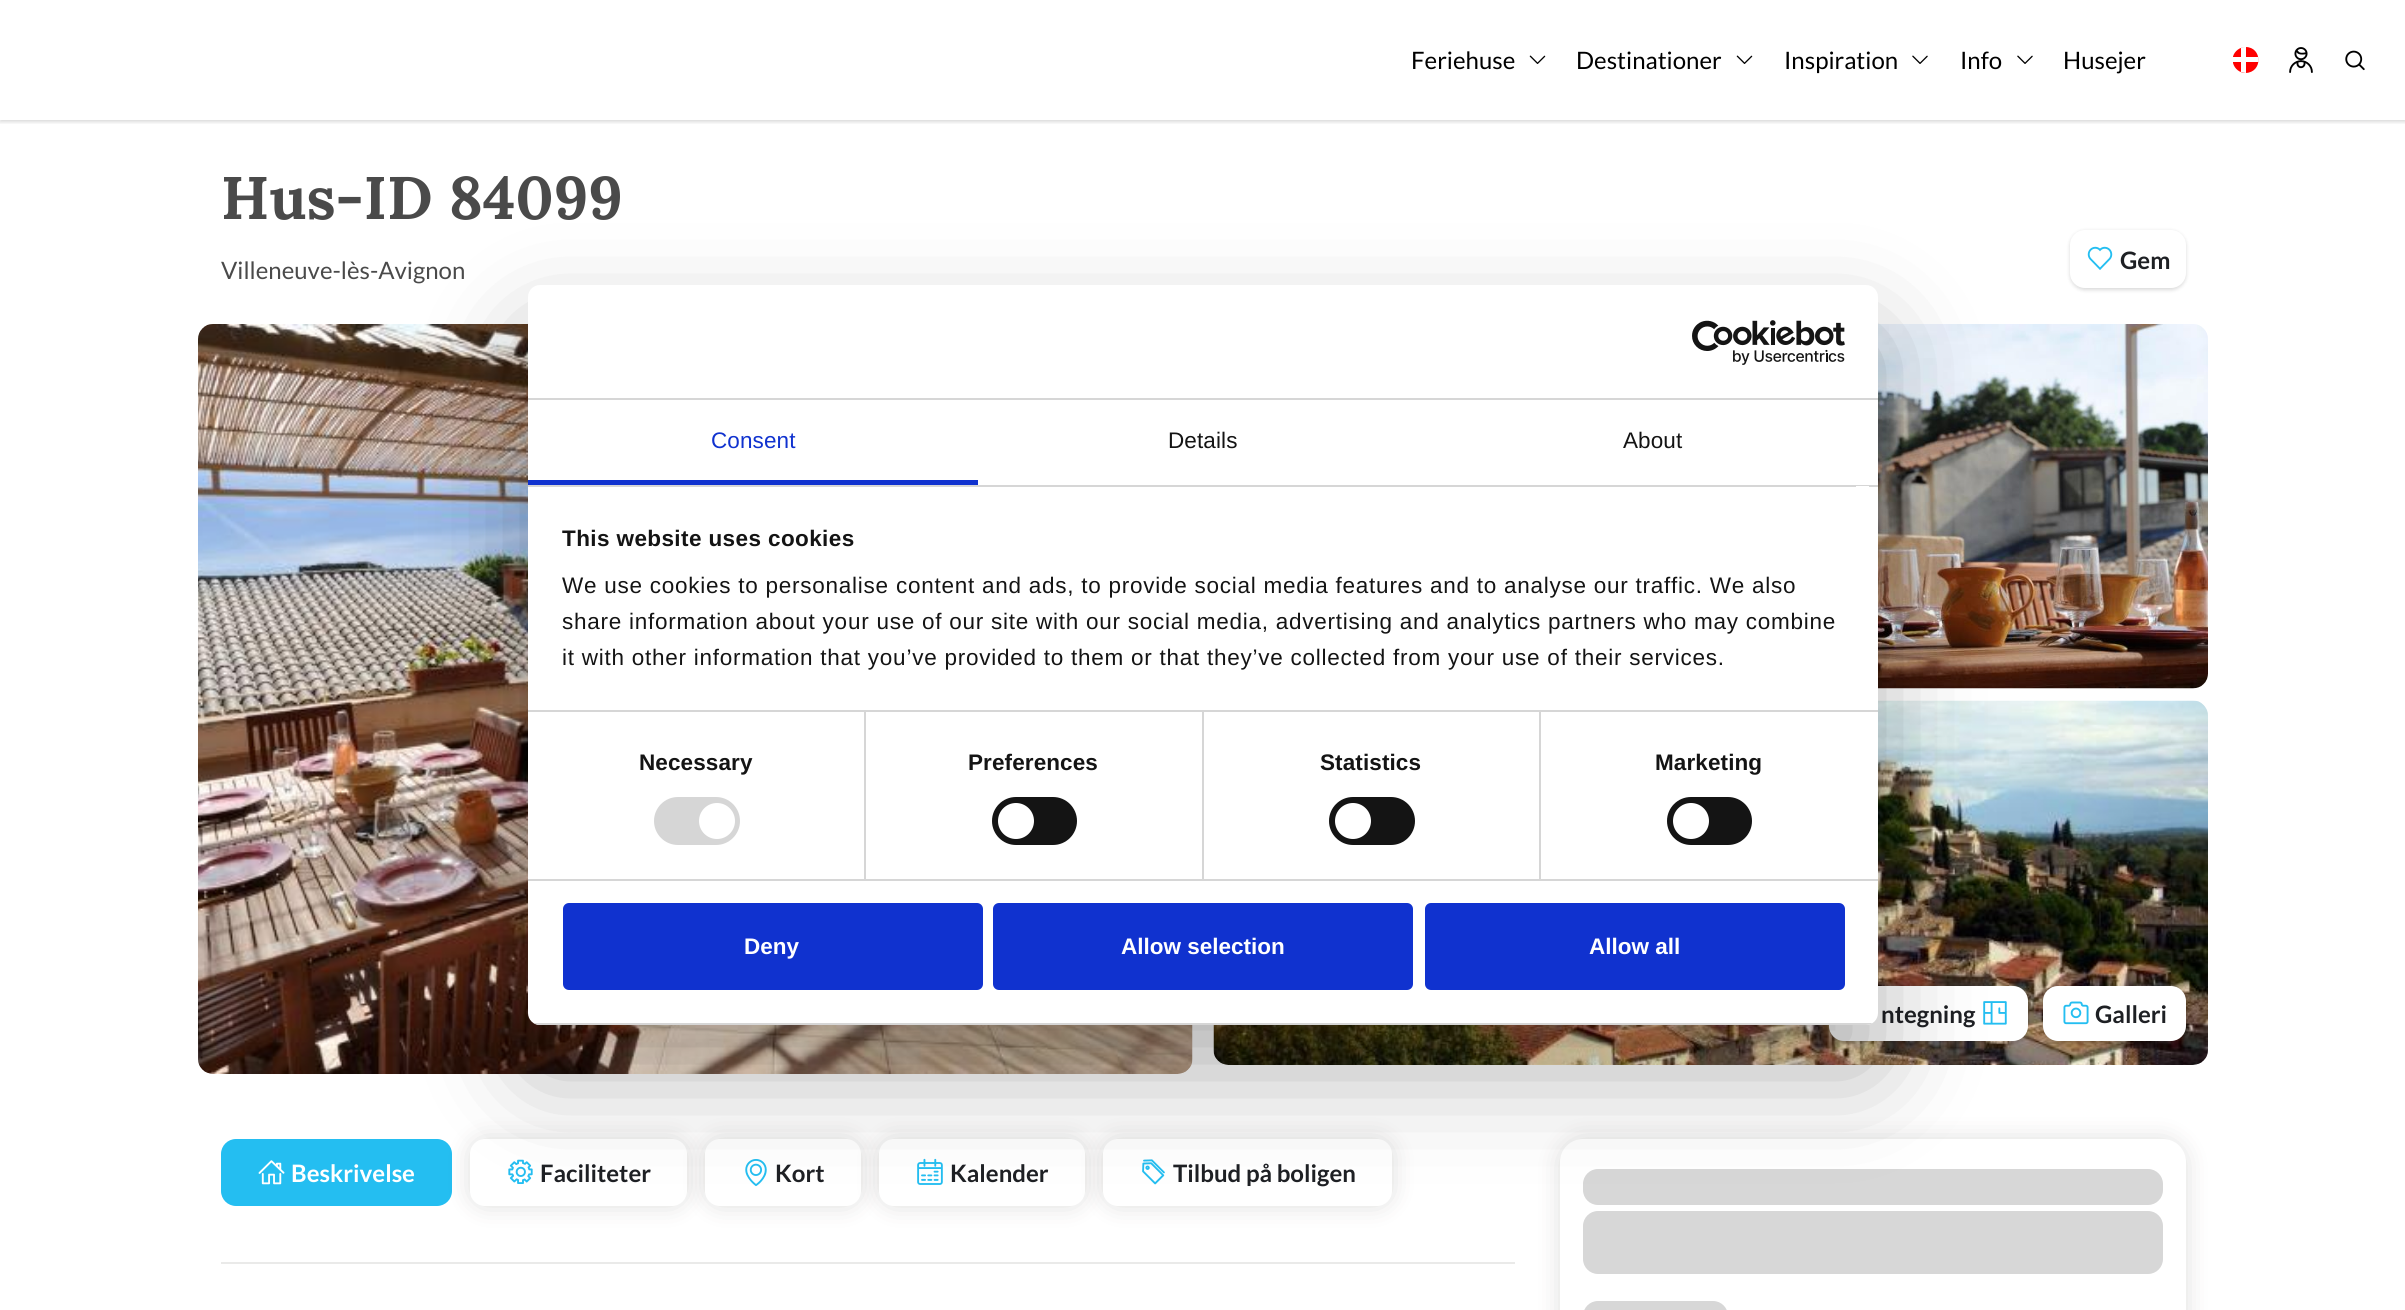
import math
import cairocffi as cairo

surface = cairo.ImageSurface(cairo.FORMAT_RGB24, 2405, 1310)
cr = cairo.Context(surface)
options = cairo.FontOptions()
options.set_hint_metrics(cairo.HINT_METRICS_OFF)
options.set_hint_style(cairo.HINT_STYLE_NONE)
cr.set_font_options(options)
cr.set_miter_limit(4)


def use_color(code):
    cr.set_source_rgb(*(v / 255 for v in bytes.fromhex(code[-6:])))


def spaced_text(x, y, s, letter, word):
    cr.move_to(x, y)
    for ch in s:
        cr.show_text(ch)
        cr.rel_move_to(letter + word * (ch == ' '), 0)


def round_rect(x, y, w, h, r):
    cr.new_sub_path()
    for i, (u, v) in enumerate([(x + w - r, y + h - r), (x + r, y + h - r), (x + r, y + r), (x + w - r, y + r)]):
        cr.arc(u, v, r, i * math.pi / 2, (i + 1) * math.pi / 2)
    cr.close_path()


def shadow(x, y, w, h, r, blur, alpha):
    cr.push_group_with_content(cairo.CONTENT_ALPHA)
    cr.set_operator(cairo.OPERATOR_SOURCE)
    for i in range(15, -16, -2):
        e = blur * i / 6
        if min(w, h) + 2 * e > 0:
            cr.set_source_rgba(0, 0, 0, alpha * math.erfc((i - 1) / 8.5) / 2)
            round_rect(x - e, y - e, w + 2 * e, h + 2 * e, max(0, min(r + e + blur * .6, min(w, h) / 2 + e)))
            cr.fill()
    cr.mask(cr.pop_group())


def picture(path, x, y, w, h):
    cr.save()
    cr.set_source_surface(cairo.ImageSurface.create_from_png(path), x, y)
    cr.rectangle(x, y, w, h)
    cr.fill()
    cr.restore()


use_color("#ffffff")
cr.paint()
cr.save()
cr.rectangle(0, 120, 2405, 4)
cr.clip()
use_color("#000000")
shadow(0, 2, 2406, 120, 0, 2, 0.15)
cr.restore()
cr.select_font_face("Lato")
cr.set_font_size(24)
use_color("#000000")
cr.move_to(1411, 69)
cr.show_text("Feriehuse")
picture("img1.png", 1529, 55, 17, 9)
cr.move_to(1576, 69)
cr.show_text("Destinationer")
picture("img1.png", 1736, 55, 17, 9)
cr.move_to(1784, 69)
cr.show_text("Inspiration")
picture("img2.png", 1912, 55, 16, 9)
cr.move_to(1960, 69)
cr.show_text("Info")
picture("img2.png", 2017, 55, 16, 9)
cr.move_to(2063, 69)
cr.show_text("Husejer")
use_color("#ff0000")
cr.new_path()
cr.move_to(2245.5, 47)
cr.curve_to(2262.5, 47, 2263, 72.5, 2245.5, 73)
cr.curve_to(2240, 73, 2234.5, 69, 2233, 63)
cr.line_to(2233, 56.5)
cr.curve_to(2234.5, 51, 2240, 47, 2245.5, 47)
cr.close_path()
cr.fill()
use_color("#ffffff")
cr.new_path()
cr.move_to(2232.5, 62)
cr.curve_to(2232.5, 60.5, 2232.5, 58.5, 2233, 57)
cr.line_to(2258.5, 57)
cr.curve_to(2258.5, 58.5, 2259, 60.5, 2258.5, 62)
cr.close_path()
cr.fill()
cr.new_path()
cr.move_to(2241, 47.5)
cr.curve_to(2242.5, 47, 2244, 47, 2246, 47)
cr.line_to(2246, 73)
cr.curve_to(2244.5, 73, 2242.5, 72.5, 2241, 72)
cr.close_path()
cr.fill()
picture("img3.png", 2289, 47, 24, 26)
picture("img4.png", 2345, 50, 20, 21)
cr.select_font_face("Lora", cairo.FONT_SLANT_NORMAL, cairo.FONT_WEIGHT_BOLD)
cr.set_font_size(60)
use_color("#4a4a4a")
cr.move_to(221, 219)
cr.show_text("Hus-ID 84099")
cr.select_font_face("Lato")
cr.set_font_size(24)
cr.move_to(221, 279)
cr.show_text("Villeneuve-lès-Avignon")
use_color("#000000")
shadow(2070, 231, 116, 59, 15, 2, 0.15)
use_color("#ffffff")
round_rect(2070, 230, 116, 58, 15)
cr.fill()
picture("img5.png", 2087, 246, 26, 24)
cr.select_font_face("Lato", cairo.FONT_SLANT_NORMAL, cairo.FONT_WEIGHT_BOLD)
use_color("#1e2024")
cr.move_to(2120, 269)
cr.show_text("Gem")
picture("img6.png", 198, 324, 995, 750)
picture("img7.png", 1878, 324, 330, 365)
picture("img8.png", 1213, 700, 995, 365)
use_color("#000000")
shadow(1829, 987, 199, 56, 15, 2, 0.15)
use_color("#ffffff")
round_rect(1829, 986, 199, 55, 15)
cr.fill()
use_color("#1e2024")
cr.move_to(1881, 1023)
cr.show_text("ntegning")
picture("img9.png", 1983, 1001, 24, 24)
use_color("#000000")
shadow(2043, 987, 143, 56, 15, 2, 0.15)
use_color("#ffffff")
round_rect(2043, 986, 143, 55, 15)
cr.fill()
picture("img10.png", 2063, 1001, 26, 24)
use_color("#1e2024")
cr.move_to(2095, 1023)
cr.show_text("Galleri")
use_color("#24bef1")
round_rect(221, 1139, 231, 67, 15)
cr.fill()
picture("img11.png", 258, 1160, 27, 25)
use_color("#ffffff")
cr.move_to(291, 1182)
cr.show_text("Beskrivelse")
use_color("#2b2a21")
shadow(470, 1139, 217, 67, 15, 12, 0.15)
use_color("#ffffff")
round_rect(470, 1139, 217, 67, 15)
cr.fill()
picture("img12.png", 508, 1159, 25, 25)
use_color("#1e2024")
cr.move_to(540, 1182)
cr.show_text("Faciliteter")
use_color("#2b2a21")
shadow(705, 1139, 156, 67, 15, 12, 0.15)
use_color("#ffffff")
round_rect(705, 1139, 156, 67, 15)
cr.fill()
picture("img13.png", 745, 1159, 22, 28)
use_color("#1e2024")
cr.move_to(775, 1182)
cr.show_text("Kort")
use_color("#2b2a21")
shadow(879, 1139, 206, 67, 15, 12, 0.15)
use_color("#ffffff")
round_rect(879, 1139, 206, 67, 15)
cr.fill()
picture("img14.png", 917, 1158, 26, 27)
use_color("#1e2024")
cr.move_to(950, 1182)
cr.show_text("Kalender")
use_color("#2b2a21")
shadow(1103, 1139, 289, 67, 15, 12, 0.15)
use_color("#ffffff")
round_rect(1103, 1139, 289, 67, 15)
cr.fill()
picture("img15.png", 1142, 1159, 23, 26)
use_color("#1e2024")
cr.move_to(1173, 1182)
cr.show_text("Tilbud på boligen")
use_color("#eaeae9")
cr.rectangle(221, 1262, 1294, 2)
cr.fill()
use_color("#2b2a21")
shadow(1560, 1139, 626, 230, 23, 12, 0.15)
use_color("#ffffff")
round_rect(1560, 1139, 626, 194, 23)
cr.fill()
use_color("#d7d7d7")
round_rect(1583, 1169, 580, 36, 15)
cr.fill()
round_rect(1583, 1211, 580, 63, 15)
cr.fill()
round_rect(1583, 1301, 145, 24, 15)
cr.fill()
use_color("#000000")
shadow(528, 333, 1350, 740, 12, 51, 0.3)
use_color("#ffffff")
round_rect(528, 285, 1350, 740, 12)
cr.fill()
use_color("#d6d6d6")
cr.rectangle(528, 398, 1350, 2)
cr.fill()
picture("img16.png", 1692, 320, 153, 45)
cr.rectangle(528, 485, 1350, 2)
cr.fill()
use_color("#1032cf")
cr.rectangle(528, 480, 450, 5)
cr.fill()
cr.select_font_face("Liberation Sans")
cr.set_font_size(22.5)
spaced_text(711, 448, "Consent", 0.1, 0)
use_color("#141414")
spaced_text(1168, 448, "Details", 0.1, 0)
spaced_text(1623, 448, "About", 0.1, 0)
use_color("#d6d6d6")
cr.rectangle(864, 711, 2, 168)
cr.fill()
cr.rectangle(1202, 711, 2, 168)
cr.fill()
cr.rectangle(1539, 711, 2, 168)
cr.fill()
cr.rectangle(528, 710, 1350, 2)
cr.fill()
use_color("#ffffff")
cr.rectangle(1856, 486, 13, 1)
cr.fill()
cr.select_font_face("Liberation Sans", cairo.FONT_SLANT_NORMAL, cairo.FONT_WEIGHT_BOLD)
use_color("#141414")
spaced_text(562, 546, "This website uses cookies", 0.4, 0)
cr.select_font_face("Liberation Sans")
spaced_text(562, 593, "We use cookies to personalise content and ads, to provide social media features and to analyse our traffic. We also", 0.75, 0)
spaced_text(562, 629, "share information about your use of our site with our social media, advertising and analytics partners who may combine", 0.75, 0)
spaced_text(562, 665, "it with other information that you’ve provided to them or that they’ve collected from your use of their services.", 0.75, 0)
use_color("#d6d6d6")
cr.rectangle(528, 879, 1350, 2)
cr.fill()
cr.select_font_face("Liberation Sans", cairo.FONT_SLANT_NORMAL, cairo.FONT_WEIGHT_BOLD)
use_color("#141414")
spaced_text(639, 770, "Necessary", 0.1, 0)
use_color("#d6d6d6")
round_rect(654, 797, 86, 48, 24)
cr.fill()
use_color("#ffffff")
cr.arc(717, 821, 18, 0, 2 * math.pi)
cr.fill()
use_color("#141414")
spaced_text(968, 770, "Preferences", 0.1, 0)
round_rect(992, 797, 85, 48, 24)
cr.fill()
use_color("#ffffff")
cr.arc(1016, 821, 18, 0, 2 * math.pi)
cr.fill()
use_color("#141414")
spaced_text(1320, 770, "Statistics", 0.1, 0)
round_rect(1329, 797, 86, 48, 24)
cr.fill()
use_color("#ffffff")
cr.arc(1353, 821, 18, 0, 2 * math.pi)
cr.fill()
use_color("#141414")
spaced_text(1655, 770, "Marketing", 0.1, 0)
round_rect(1667, 797, 85, 48, 24)
cr.fill()
use_color("#ffffff")
cr.arc(1691, 821, 18, 0, 2 * math.pi)
cr.fill()
cr.save()
round_rect(528, 285, 1350, 740, 12)
cr.clip()
use_color("#d6d6d6")
cr.rectangle(528, 1023, 1350, 2)
cr.fill()
cr.restore()
use_color("#1032cf")
round_rect(564.5, 904.5, 417, 84, 4.5)
cr.fill_preserve()
cr.set_line_width(3)
cr.stroke()
use_color("#ffffff")
cr.move_to(744, 954)
cr.show_text("Deny")
use_color("#1032cf")
round_rect(994.5, 904.5, 417, 84, 4.5)
cr.fill_preserve()
cr.stroke()
use_color("#ffffff")
cr.move_to(1121, 954)
cr.show_text("Allow selection")
use_color("#1032cf")
round_rect(1426.5, 904.5, 417, 84, 4.5)
cr.fill_preserve()
cr.stroke()
use_color("#ffffff")
cr.move_to(1589, 954)
cr.show_text("Allow all")
surface.write_to_png("result.png")
